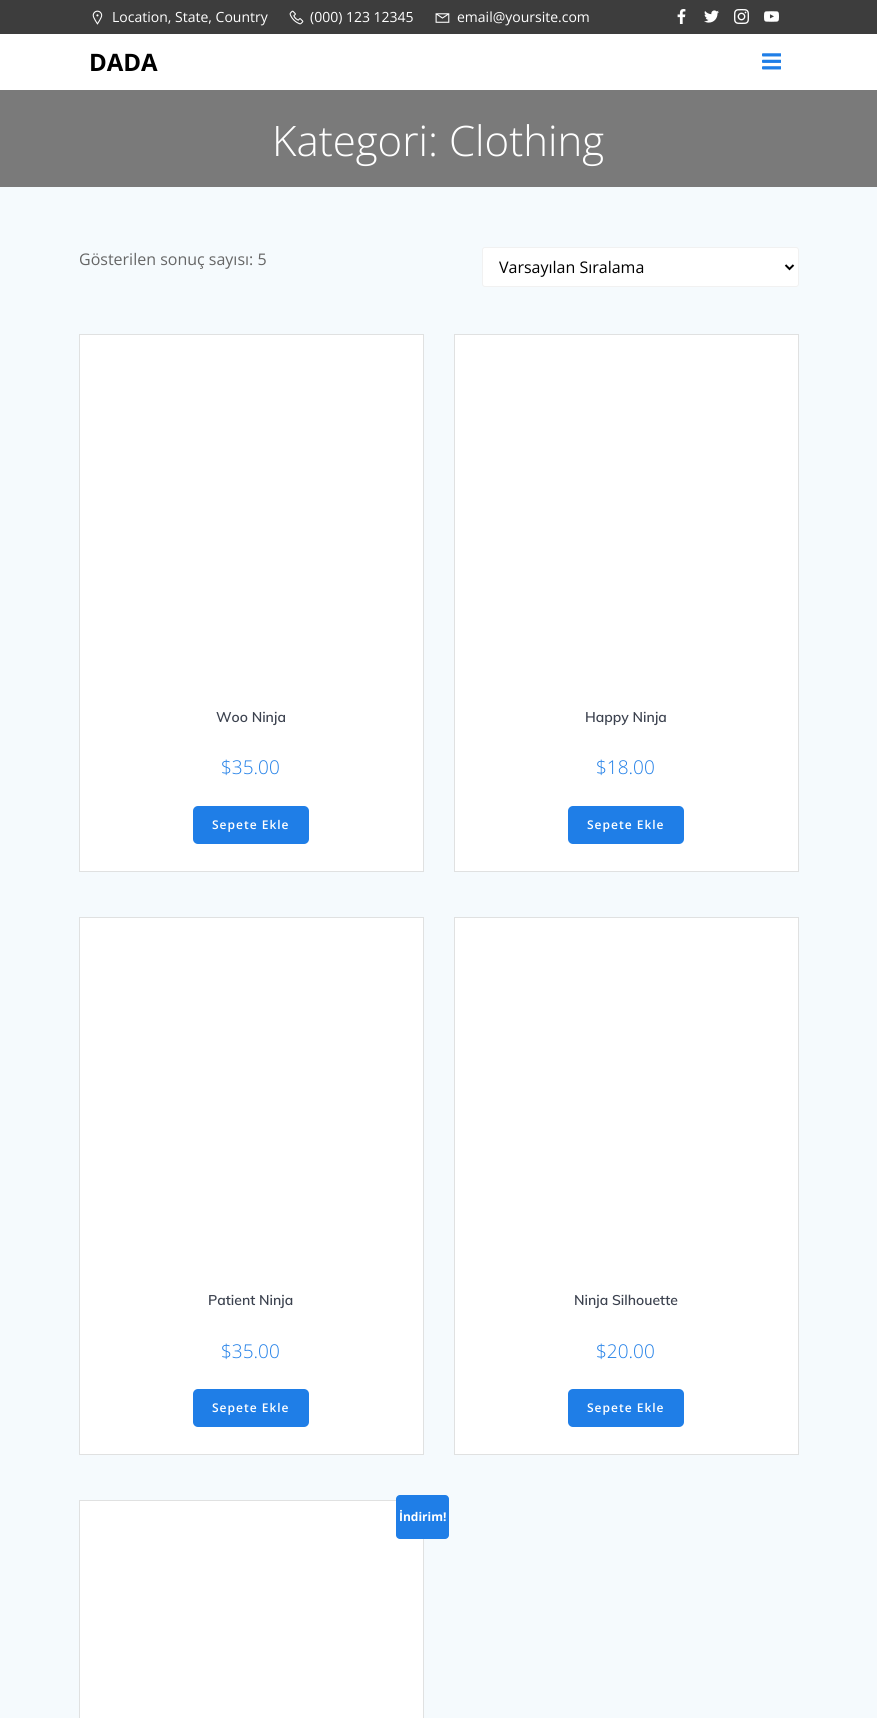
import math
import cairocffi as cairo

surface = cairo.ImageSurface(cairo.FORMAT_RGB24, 877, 1718)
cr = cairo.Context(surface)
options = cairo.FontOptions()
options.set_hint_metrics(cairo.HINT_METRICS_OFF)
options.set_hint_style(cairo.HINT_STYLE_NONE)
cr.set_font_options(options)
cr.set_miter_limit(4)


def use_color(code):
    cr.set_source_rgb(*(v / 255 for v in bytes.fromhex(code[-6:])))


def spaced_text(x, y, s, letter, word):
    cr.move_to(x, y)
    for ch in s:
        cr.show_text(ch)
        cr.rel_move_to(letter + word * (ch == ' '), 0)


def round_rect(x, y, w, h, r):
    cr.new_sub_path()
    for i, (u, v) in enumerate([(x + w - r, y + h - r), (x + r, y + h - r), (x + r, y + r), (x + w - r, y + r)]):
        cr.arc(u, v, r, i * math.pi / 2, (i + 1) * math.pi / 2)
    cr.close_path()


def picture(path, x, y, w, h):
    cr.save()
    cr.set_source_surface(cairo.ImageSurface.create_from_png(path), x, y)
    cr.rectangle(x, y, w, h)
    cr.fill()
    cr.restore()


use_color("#f5fafd")
cr.paint()
use_color("#3d3d3d")
cr.rectangle(0, 0, 877, 34)
cr.fill()
picture("img1.png", 92, 10, 11, 15)
cr.select_font_face("Open Sans")
cr.set_font_size(14)
use_color("#ffffff")
cr.move_to(112, 22)
cr.show_text("Location, State, Country")
picture("img2.png", 289, 10, 15, 15)
cr.move_to(310, 22)
cr.show_text("(000) 123 12345")
picture("img3.png", 435, 13, 15, 10)
cr.move_to(457, 22)
cr.show_text("email@yoursite.com")
picture("img4.png", 677, 9, 9, 15)
picture("img5.png", 704, 10, 15, 13)
picture("img6.png", 734, 9, 15, 15)
picture("img7.png", 764, 11, 15, 11)
cr.rectangle(0, 34, 877, 56)
cr.fill()
cr.select_font_face("Open Sans", cairo.FONT_SLANT_NORMAL, cairo.FONT_WEIGHT_BOLD)
cr.set_font_size(24)
use_color("#000000")
cr.move_to(89, 71)
cr.show_text("DADA")
picture("img8.png", 762, 53, 19, 17)
use_color("#7a7a7a")
cr.rectangle(0, 90, 877, 97)
cr.fill()
cr.select_font_face("Open Sans Light")
cr.set_font_size(42)
use_color("#ffffff")
cr.move_to(272, 156)
cr.show_text("Kategori: Clothing")
cr.select_font_face("Open Sans")
cr.set_font_size(16)
use_color("#666666")
cr.move_to(79, 265)
cr.show_text("Gösterilen sonuç sayısı: 5")
use_color("#ffffff")
round_rect(482.5, 247.5, 316, 39, 2.5)
cr.fill_preserve()
use_color("#f1f1f1")
cr.set_line_width(1)
cr.stroke()
cr.new_path()
cr.move_to(785.5, 265)
cr.line_to(789.5, 269)
cr.line_to(793.5, 265)
use_color("#000000")
cr.set_line_width(2)
cr.stroke()
cr.move_to(499, 273)
cr.show_text("Varsayılan Sıralama")
use_color("#ffffff")
cr.rectangle(79.5, 334.5, 344, 537)
cr.fill_preserve()
use_color("#e0e1e1")
cr.set_line_width(1)
cr.stroke()
cr.select_font_face("Muli SemiBold")
cr.set_font_size(14)
use_color("#3c424f")
cr.move_to(216, 722)
cr.show_text("Woo Ninja")
cr.select_font_face("Open Sans Light")
cr.set_font_size(19)
use_color("#1f7ee7")
cr.move_to(221, 774)
cr.show_text("$35.00")
round_rect(193, 806, 116, 38, 5)
cr.fill()
cr.select_font_face("Open Sans SemiBold")
cr.set_font_size(12)
use_color("#ffffff")
spaced_text(212, 829, "Sepete Ekle", 1, 0)
cr.rectangle(454.5, 334.5, 344, 537)
cr.fill_preserve()
use_color("#e0e1e1")
cr.stroke()
cr.select_font_face("Muli SemiBold")
cr.set_font_size(14)
use_color("#3c424f")
cr.move_to(585, 722)
cr.show_text("Happy Ninja")
cr.select_font_face("Open Sans Light")
cr.set_font_size(19)
use_color("#1f7ee7")
cr.move_to(596, 774)
cr.show_text("$18.00")
round_rect(568, 806, 116, 38, 5)
cr.fill()
cr.select_font_face("Open Sans SemiBold")
cr.set_font_size(12)
use_color("#ffffff")
spaced_text(587, 829, "Sepete Ekle", 1, 0)
cr.rectangle(79.5, 917.5, 344, 537)
cr.fill_preserve()
use_color("#e0e1e1")
cr.stroke()
cr.select_font_face("Muli SemiBold")
cr.set_font_size(14)
use_color("#3c424f")
cr.move_to(208, 1305)
cr.show_text("Patient Ninja")
cr.select_font_face("Open Sans Light")
cr.set_font_size(19)
use_color("#1f7ee7")
cr.move_to(221, 1358)
cr.show_text("$35.00")
round_rect(193, 1389, 116, 38, 5)
cr.fill()
cr.select_font_face("Open Sans SemiBold")
cr.set_font_size(12)
use_color("#ffffff")
spaced_text(212, 1412, "Sepete Ekle", 1, 0)
cr.rectangle(454.5, 917.5, 344, 537)
cr.fill_preserve()
use_color("#e0e1e1")
cr.stroke()
cr.select_font_face("Muli SemiBold")
cr.set_font_size(14)
use_color("#3c424f")
cr.move_to(574, 1305)
cr.show_text("Ninja Silhouette")
cr.select_font_face("Open Sans Light")
cr.set_font_size(19)
use_color("#1f7ee7")
cr.move_to(596, 1358)
cr.show_text("$20.00")
round_rect(568, 1389, 116, 38, 5)
cr.fill()
cr.select_font_face("Open Sans SemiBold")
cr.set_font_size(12)
use_color("#ffffff")
spaced_text(587, 1412, "Sepete Ekle", 1, 0)
cr.rectangle(79.5, 1500.5, 344, 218)
cr.fill_preserve()
use_color("#e0e1e1")
cr.stroke()
use_color("#1f7ee7")
round_rect(396, 1495, 53, 44, 4)
cr.fill()
cr.select_font_face("Open Sans", cairo.FONT_SLANT_NORMAL, cairo.FONT_WEIGHT_BOLD)
use_color("#ffffff")
cr.move_to(399, 1521)
cr.show_text("İndirim!")
surface.write_to_png("result.png")
